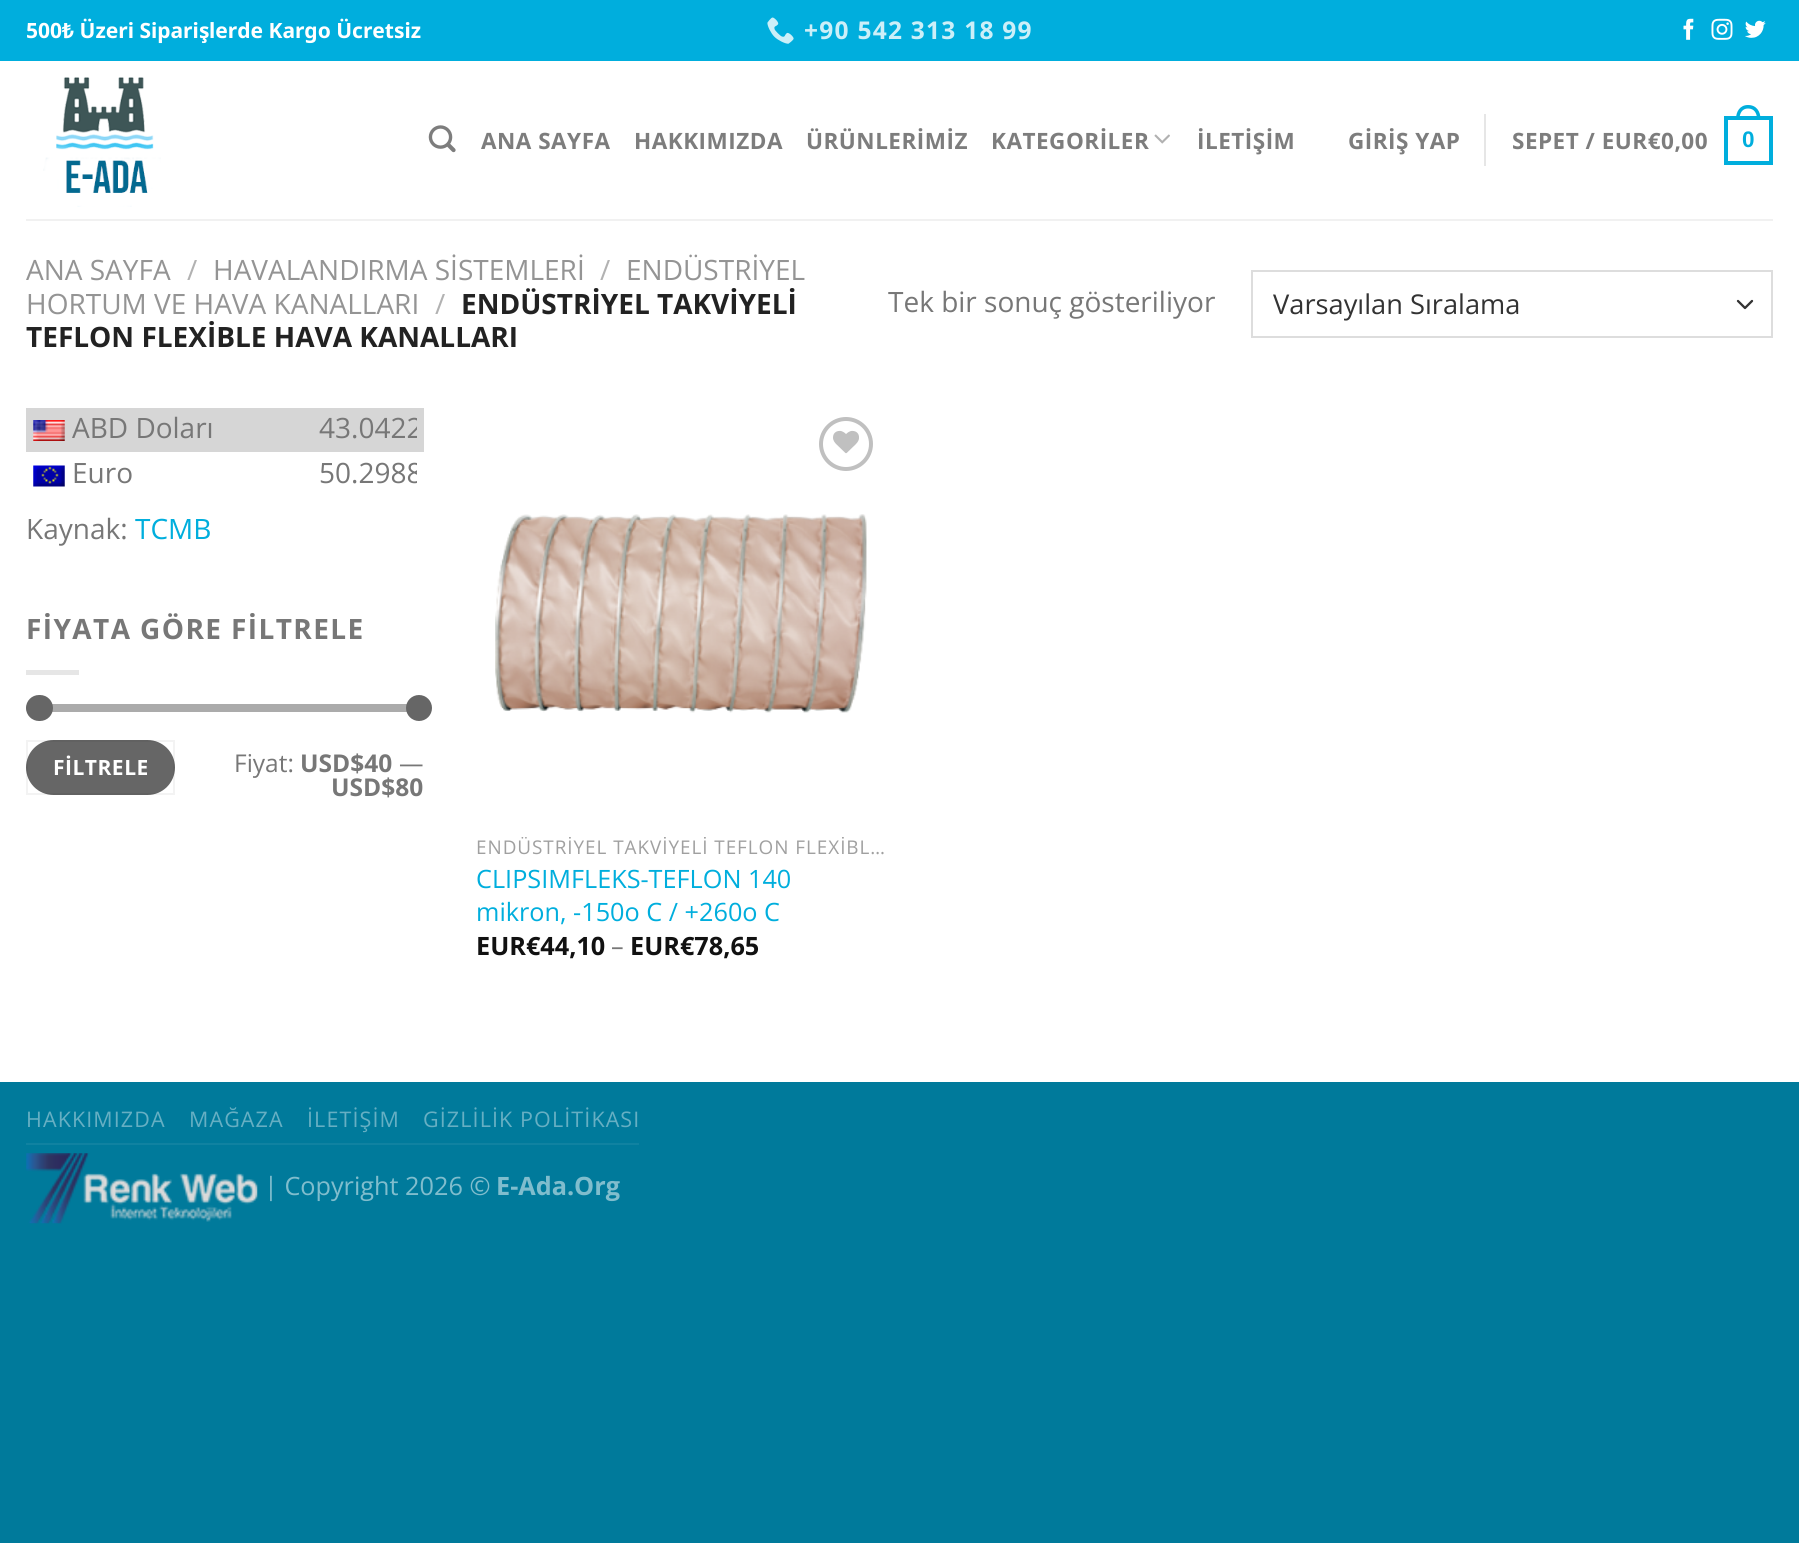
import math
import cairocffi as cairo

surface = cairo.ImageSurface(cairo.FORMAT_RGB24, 1799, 1543)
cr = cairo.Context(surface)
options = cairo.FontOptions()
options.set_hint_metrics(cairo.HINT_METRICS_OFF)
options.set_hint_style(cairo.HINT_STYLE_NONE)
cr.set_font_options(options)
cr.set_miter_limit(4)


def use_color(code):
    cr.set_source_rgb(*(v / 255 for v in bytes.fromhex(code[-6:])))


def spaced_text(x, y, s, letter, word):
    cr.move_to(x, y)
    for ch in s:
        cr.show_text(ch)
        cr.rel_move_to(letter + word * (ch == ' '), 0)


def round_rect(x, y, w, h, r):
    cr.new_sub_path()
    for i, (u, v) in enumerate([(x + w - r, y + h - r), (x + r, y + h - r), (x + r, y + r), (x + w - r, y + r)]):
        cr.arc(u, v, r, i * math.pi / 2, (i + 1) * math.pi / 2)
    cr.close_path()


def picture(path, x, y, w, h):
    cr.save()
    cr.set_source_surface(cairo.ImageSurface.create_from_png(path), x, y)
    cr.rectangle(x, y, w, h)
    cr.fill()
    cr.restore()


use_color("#007a9b")
cr.paint()
use_color("#ffffff")
cr.rectangle(0, 61, 1799, 1021)
cr.fill()
use_color("#00aedd")
cr.rectangle(0, 0, 1799, 61)
cr.fill()
cr.select_font_face("Noto Sans", cairo.FONT_SLANT_NORMAL, cairo.FONT_WEIGHT_BOLD)
cr.set_font_size(21)
use_color("#ffffff")
cr.move_to(26, 38)
cr.show_text("500₺ Üzeri Sipari")
cr.select_font_face("Open Sans", cairo.FONT_SLANT_NORMAL, cairo.FONT_WEIGHT_BOLD)
cr.move_to(199, 38)
cr.show_text("ş")
cr.select_font_face("Noto Sans", cairo.FONT_SLANT_NORMAL, cairo.FONT_WEIGHT_BOLD)
cr.move_to(209, 38)
cr.show_text("lerde Kargo Ücretsiz")
picture("img1.png", 767, 17, 27, 27)
cr.select_font_face("Open Sans", cairo.FONT_SLANT_NORMAL, cairo.FONT_WEIGHT_BOLD)
cr.set_font_size(24.5)
use_color("#cceff8")
spaced_text(804, 39, "+90 542 313 18 99", 1.25, 0)
picture("img2.png", 1683, 18, 11, 22)
picture("img3.png", 1711, 18, 22, 22)
picture("img4.png", 1745, 20, 21, 18)
picture("img5.png", 43, 77, 118, 130)
picture("img6.png", 428, 125, 28, 28)
cr.set_font_size(22.5)
use_color("#7d7d7d")
spaced_text(481, 149, "ANA SAYFA", 0.5, 0)
spaced_text(634, 149, "HAKKIMIZDA", 0.5, 0)
spaced_text(806, 149, "ÜRÜNLERİMİZ", 0.5, 0)
spaced_text(991, 149, "KATEGORİLER", 0.5, 0)
picture("img7.png", 1154, 134, 16, 10)
spaced_text(1197, 149, "İLETİŞİM", 0.5, 0)
spaced_text(1348, 149, "GİRİŞ YAP", 0.5, 0)
use_color("#e6e6e6")
cr.rectangle(1484, 114, 2, 52)
cr.fill()
use_color("#7d7d7d")
spaced_text(1512, 149, "SEPET / EUR€0,00", 0.5, 0)
cr.rectangle(1726, 118, 45, 45)
use_color("#00aedd")
cr.set_line_width(4)
cr.stroke()
cr.set_fill_rule(cairo.FILL_RULE_EVEN_ODD)
cr.new_path()
cr.move_to(1748, 105)
cr.curve_to(1756.5, 105, 1760.5, 111.5, 1760.5, 119)
cr.line_to(1736, 119)
cr.curve_to(1736, 111.5, 1740, 105, 1748, 105)
cr.close_path()
cr.move_to(1748, 108.5)
cr.curve_to(1754.5, 108.5, 1757, 113.5, 1757, 119)
cr.line_to(1739.5, 119)
cr.curve_to(1739.5, 113.5, 1742, 108.5, 1748, 108.5)
cr.close_path()
cr.fill()
cr.select_font_face("Liberation Sans", cairo.FONT_SLANT_NORMAL, cairo.FONT_WEIGHT_BOLD)
spaced_text(1742, 147, "0", 0.5, 0)
use_color("#f1f1f1")
cr.rectangle(26, 219, 1747, 2)
cr.fill()
cr.select_font_face("Open Sans")
cr.set_font_size(28)
use_color("#949494")
cr.move_to(26, 280)
cr.show_text("ANA SAYFA")
use_color("#b2b2b2")
cr.move_to(187, 280)
cr.show_text("/")
use_color("#949494")
cr.move_to(213, 280)
cr.show_text("HAVALANDIRMA SİSTEMLERİ")
use_color("#b2b2b2")
cr.move_to(600, 280)
cr.show_text("/")
use_color("#949494")
cr.move_to(626, 280)
cr.show_text("ENDÜSTRİYEL")
cr.move_to(26, 314)
cr.show_text("HORTUM VE HAVA KANALLARI")
use_color("#b2b2b2")
cr.move_to(435, 314)
cr.show_text("/")
cr.select_font_face("Open Sans", cairo.FONT_SLANT_NORMAL, cairo.FONT_WEIGHT_BOLD)
use_color("#222222")
cr.move_to(461, 314)
cr.show_text("ENDÜSTRİYEL TAKVİYELİ")
cr.move_to(26, 347)
cr.show_text("TEFLON FLEXİBLE HAVA KANALLARI")
cr.select_font_face("Open Sans")
use_color("#777777")
cr.move_to(888, 312)
cr.show_text("Tek bir sonuç gösteriliyor")
cr.new_path()
cr.move_to(1738, 301)
cr.line_to(1745, 308)
cr.line_to(1752, 301)
use_color("#333333")
cr.set_line_width(2.3)
cr.set_line_cap(cairo.LINE_CAP_ROUND)
cr.set_line_join(cairo.LINE_JOIN_ROUND)
cr.stroke()
cr.rectangle(1252, 271, 520, 66)
use_color("#dddddd")
cr.set_line_width(2)
cr.set_line_cap(cairo.LINE_CAP_BUTT)
cr.set_line_join(cairo.LINE_JOIN_MITER)
cr.stroke()
cr.set_font_size(27.25)
use_color("#333333")
cr.move_to(1273, 314)
cr.show_text("Varsayılan Sıralama")
use_color("#d6d6d6")
cr.rectangle(26, 408, 398, 44)
cr.fill()
picture("img8.png", 33, 420, 32, 21)
cr.set_font_size(28)
use_color("#777777")
cr.move_to(72, 438)
cr.show_text("ABD Doları")
cr.save()
cr.set_fill_rule(cairo.FILL_RULE_WINDING)
cr.rectangle(319, 408, 98, 44)
cr.clip()
cr.move_to(319, 438)
cr.show_text("43.0422")
cr.restore()
picture("img9.png", 33, 465, 32, 22)
cr.move_to(72, 483)
cr.show_text("Euro")
cr.save()
cr.set_fill_rule(cairo.FILL_RULE_WINDING)
cr.rectangle(319, 452, 98, 45)
cr.clip()
cr.move_to(319, 483)
cr.show_text("50.2988")
cr.restore()
cr.move_to(26, 539)
cr.show_text("Kaynak:")
use_color("#00aedd")
cr.move_to(135, 539)
cr.show_text("TCMB")
cr.select_font_face("Open Sans", cairo.FONT_SLANT_NORMAL, cairo.FONT_WEIGHT_BOLD)
use_color("#777777")
spaced_text(26, 639, "FİYATA GÖRE FİLTRELE", 1.4, 0)
use_color("#e6e6e6")
cr.rectangle(26, 670, 53, 5)
cr.fill()
use_color("#f1f1f1")
round_rect(26, 704, 398, 8, 4)
cr.fill()
cr.set_source_rgba(0.4, 0.4, 0.4, 0.5)
round_rect(26, 704, 398, 8, 4)
cr.fill()
use_color("#666666")
round_rect(26, 695, 27, 26, 13)
cr.fill()
cr.arc(419, 708, 13, 0, 2 * math.pi)
cr.fill()
round_rect(26, 740, 149, 55, 27.5)
cr.fill()
cr.rectangle(27, 741, 147, 53)
cr.set_source_rgba(0, 0, 0, 0.05)
cr.stroke()
cr.set_font_size(21)
use_color("#ffffff")
spaced_text(53, 775, "FİLTRELE", 0.5, 0)
cr.select_font_face("Open Sans")
cr.set_font_size(24.5)
use_color("#777777")
cr.move_to(234, 772)
cr.show_text("Fiyat:")
cr.select_font_face("Open Sans", cairo.FONT_SLANT_NORMAL, cairo.FONT_WEIGHT_BOLD)
cr.move_to(300, 772)
cr.show_text("USD$40")
cr.select_font_face("Open Sans")
cr.move_to(399, 772)
cr.show_text("—")
cr.select_font_face("Open Sans", cairo.FONT_SLANT_NORMAL, cairo.FONT_WEIGHT_BOLD)
cr.move_to(331, 796)
cr.show_text("USD$80")
cr.new_path()
cr.arc(846, 444, 25, 0, 2 * math.pi)
use_color("#c0c0c0")
cr.set_line_width(4)
cr.stroke()
picture("img10.png", 833, 430, 26, 24)
picture("img11.png", 495, 514, 372, 199)
cr.save()
cr.set_fill_rule(cairo.FILL_RULE_WINDING)
cr.rectangle(476, 837, 410, 22)
cr.clip()
cr.select_font_face("Open Sans")
cr.set_font_size(18.9)
use_color("#a0a0a0")
spaced_text(476, 854, "ENDÜSTRİYEL TAKVİYELİ TEFLON FLEXİBL…", 0.95, 0)
cr.restore()
cr.select_font_face("Open Sans")
cr.set_font_size(25.25)
use_color("#00aedd")
cr.move_to(476, 888)
cr.show_text("CLIPSIMFLEKS-TEFLON 140")
cr.move_to(476, 921)
cr.show_text("mikron, -150o C / +260o C")
cr.select_font_face("Open Sans", cairo.FONT_SLANT_NORMAL, cairo.FONT_WEIGHT_BOLD)
use_color("#111111")
cr.move_to(476, 955)
cr.show_text("EUR€44,10")
cr.select_font_face("Open Sans")
use_color("#777777")
cr.move_to(611, 955)
cr.show_text("–")
cr.select_font_face("Open Sans", cairo.FONT_SLANT_NORMAL, cairo.FONT_WEIGHT_BOLD)
use_color("#111111")
cr.move_to(630, 955)
cr.show_text("EUR€78,65")
use_color("#1082a1")
cr.rectangle(26, 1143, 613, 2)
cr.fill()
cr.select_font_face("Open Sans")
cr.set_font_size(21.5)
use_color("#66afc3")
spaced_text(26, 1127, "HAKKIMIZDA", 1.1, 0)
spaced_text(189, 1127, "MAĞAZA", 1.1, 0)
spaced_text(307, 1127, "İLETİŞİM", 1.1, 0)
spaced_text(423, 1127, "GİZLİLİK POLİTİKASI", 1.1, 0)
picture("img12.png", 26, 1153, 232, 71)
cr.set_font_size(25.25)
use_color("#80bdcd")
cr.move_to(264, 1195)
cr.show_text("| Copyright 2026 ©")
cr.select_font_face("Open Sans", cairo.FONT_SLANT_NORMAL, cairo.FONT_WEIGHT_BOLD)
cr.move_to(496, 1195)
cr.show_text("E-Ada.Org")
surface.write_to_png("result.png")
